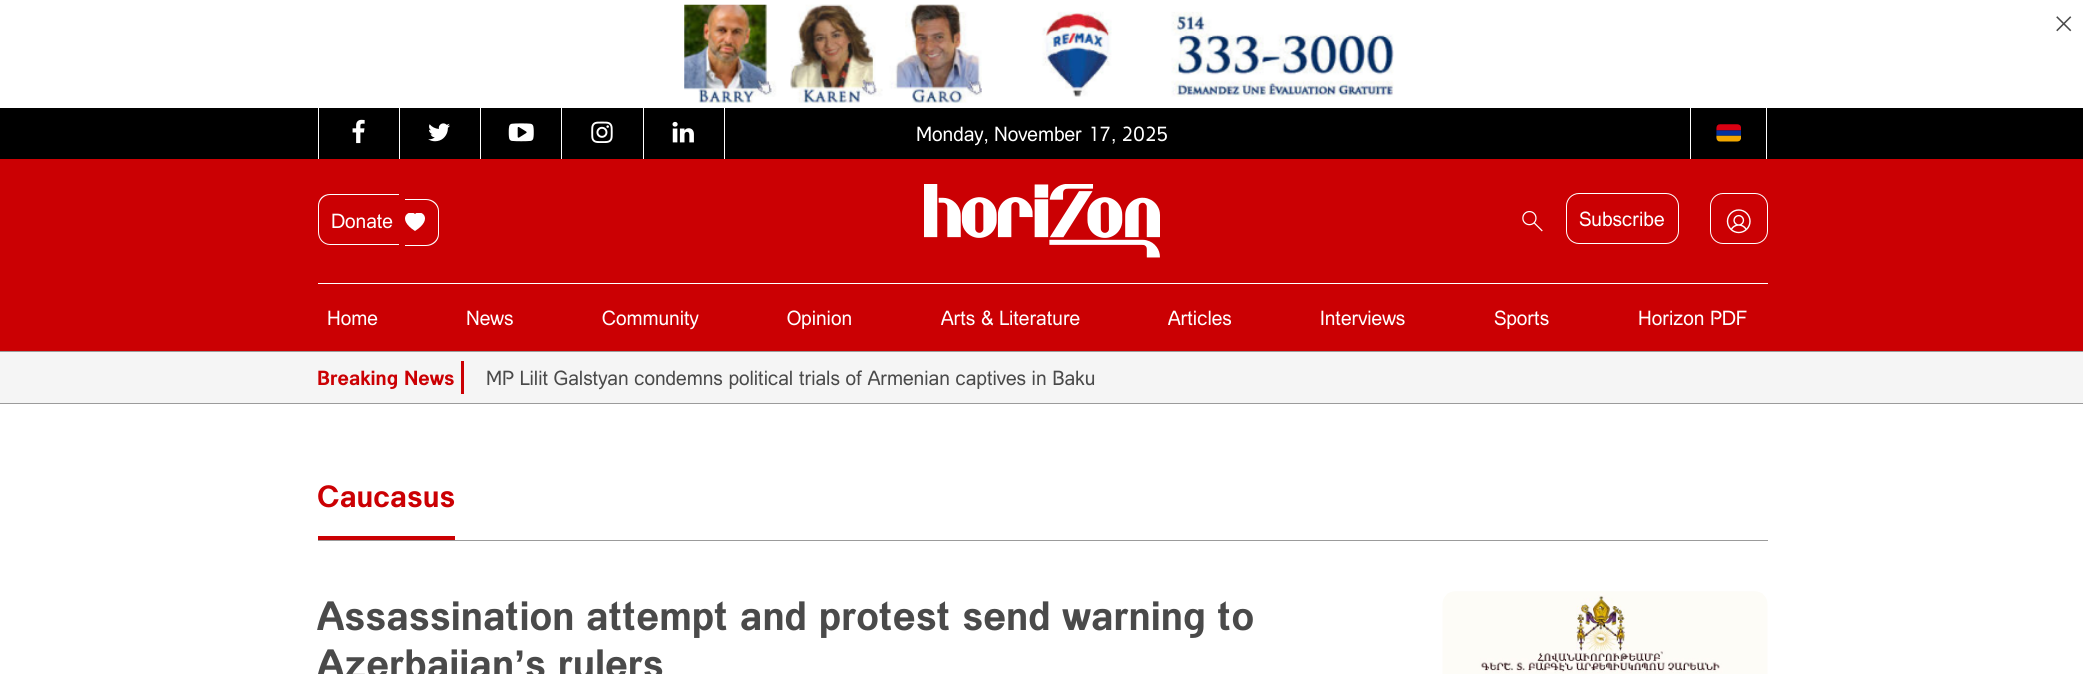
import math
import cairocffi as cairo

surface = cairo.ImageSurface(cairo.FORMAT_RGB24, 2083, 674)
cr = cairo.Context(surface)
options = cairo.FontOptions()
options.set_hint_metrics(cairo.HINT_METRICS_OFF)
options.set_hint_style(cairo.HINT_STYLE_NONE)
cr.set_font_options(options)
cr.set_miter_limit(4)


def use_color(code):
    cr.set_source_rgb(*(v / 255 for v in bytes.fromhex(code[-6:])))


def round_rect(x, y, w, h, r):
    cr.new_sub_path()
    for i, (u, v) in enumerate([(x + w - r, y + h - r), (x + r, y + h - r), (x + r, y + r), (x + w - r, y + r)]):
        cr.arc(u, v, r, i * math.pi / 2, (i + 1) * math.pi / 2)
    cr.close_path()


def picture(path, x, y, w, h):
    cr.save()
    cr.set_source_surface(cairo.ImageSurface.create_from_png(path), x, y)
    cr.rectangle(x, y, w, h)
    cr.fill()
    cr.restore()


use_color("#ffffff")
cr.paint()
picture("img1.png", 684, 4, 710, 99)
picture("img2.png", 2056, 16, 16, 16)
use_color("#000000")
cr.rectangle(0, 108, 2083, 51)
cr.fill()
use_color("#ffffff")
cr.rectangle(399, 108, 1, 51)
cr.fill()
cr.rectangle(318, 108, 1, 51)
cr.fill()
picture("img3.png", 352, 119, 13, 25)
cr.rectangle(480, 108, 1, 51)
cr.fill()
picture("img4.png", 428, 123, 22, 19)
cr.rectangle(561, 108, 1, 51)
cr.fill()
picture("img5.png", 508, 123, 26, 19)
cr.rectangle(643, 108, 1, 51)
cr.fill()
picture("img6.png", 591, 121, 22, 22)
cr.rectangle(724, 108, 1, 51)
cr.fill()
picture("img7.png", 672, 121, 22, 22)
cr.select_font_face("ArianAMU")
cr.set_font_size(20)
cr.move_to(916, 141)
cr.show_text("Monday, November 17, 2025")
cr.rectangle(1766, 108, 1, 51)
cr.fill()
cr.rectangle(1690, 108, 1, 51)
cr.fill()
picture("img8.png", 1716, 124, 25, 18)
use_color("#cb0003")
cr.rectangle(0, 159, 2083, 192)
cr.fill()
use_color("#ffffff")
cr.set_fill_rule(cairo.FILL_RULE_EVEN_ODD)
cr.new_path()
cr.move_to(330, 194)
cr.line_to(399, 194)
cr.line_to(399, 245)
cr.line_to(330, 245)
cr.curve_to(323, 245, 318, 239, 318, 232)
cr.line_to(318, 206)
cr.curve_to(318, 199, 323, 194, 330, 194)
cr.close_path()
cr.move_to(330, 195)
cr.line_to(399, 195)
cr.line_to(399, 244)
cr.line_to(330, 244)
cr.curve_to(324, 244, 319, 239, 319, 232)
cr.line_to(319, 206)
cr.curve_to(319, 200, 324, 195, 330, 195)
cr.close_path()
cr.fill()
cr.move_to(331, 228)
cr.show_text("Donate")
cr.new_path()
cr.move_to(405, 199)
cr.line_to(426, 199)
cr.curve_to(433, 199, 439, 204, 439, 211)
cr.line_to(439, 234)
cr.curve_to(439, 241, 433, 246, 426, 246)
cr.line_to(405, 246)
cr.close_path()
cr.move_to(405, 200)
cr.line_to(426, 200)
cr.curve_to(432, 200, 438, 205, 438, 211)
cr.line_to(438, 234)
cr.curve_to(438, 240, 432, 245, 426, 245)
cr.line_to(405, 245)
cr.close_path()
cr.fill()
cr.save()
cr.set_fill_rule(cairo.FILL_RULE_WINDING)
cr.rectangle(405, 213, 20, 20)
cr.clip()
cr.set_fill_rule(cairo.FILL_RULE_EVEN_ODD)
cr.new_path()
cr.move_to(415, 214)
cr.curve_to(420.5, 208.5, 434.5, 218.5, 415, 231)
cr.curve_to(395.5, 218.5, 409.5, 208.5, 415, 214)
cr.fill()
cr.restore()
picture("img9.png", 924, 184, 236, 74)
round_rect(1710.5, 193.5, 57, 50, 12.5)
cr.set_line_width(1)
cr.stroke()
picture("img10.png", 1522, 211, 21, 21)
round_rect(1566.5, 193.5, 112, 50, 12.5)
cr.stroke()
cr.move_to(1579, 226)
cr.show_text("Subscribe")
picture("img11.png", 1726, 209, 25, 25)
cr.rectangle(318, 283, 1450, 1)
cr.fill()
cr.move_to(327, 325)
cr.show_text("Home")
cr.move_to(466, 325)
cr.show_text("News")
cr.move_to(602, 325)
cr.show_text("Community")
cr.move_to(787, 325)
cr.show_text("Opinion")
cr.move_to(941, 325)
cr.show_text("Arts & Literature")
cr.move_to(1168, 325)
cr.show_text("Articles")
cr.move_to(1320, 325)
cr.show_text("Interviews")
cr.move_to(1494, 325)
cr.show_text("Sports")
cr.move_to(1638, 325)
cr.show_text("Horizon PDF")
use_color("#f5f5f5")
cr.rectangle(0, 352, 2083, 51)
cr.fill()
use_color("#9b9b9b")
cr.rectangle(0, 351, 2083, 1)
cr.fill()
cr.rectangle(0, 403, 2083, 1)
cr.fill()
use_color("#cb0003")
cr.rectangle(461, 361, 3, 33)
cr.fill()
cr.select_font_face("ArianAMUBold", cairo.FONT_SLANT_NORMAL, cairo.FONT_WEIGHT_BOLD)
cr.move_to(317, 385)
cr.show_text("Breaking News")
cr.select_font_face("ArianAMU")
use_color("#4a4a4a")
cr.move_to(486, 385)
cr.show_text("MP Lilit Galstyan condemns political trials of Armenian captives in Baku")
use_color("#9b9b9b")
cr.rectangle(318, 540, 1450, 1)
cr.fill()
cr.select_font_face("ArianAMUBold", cairo.FONT_SLANT_NORMAL, cairo.FONT_WEIGHT_BOLD)
cr.set_font_size(30)
use_color("#cb0003")
cr.move_to(317, 507)
cr.show_text("Caucasus")
cr.rectangle(318, 536, 137, 4)
cr.fill()
cr.set_font_size(40)
use_color("#4a4a4a")
cr.move_to(317, 630)
cr.show_text("Assassination attempt and protest send warning to")
cr.move_to(317, 678)
cr.show_text("Azerbaijan")
cr.select_font_face("Liberation Sans", cairo.FONT_SLANT_NORMAL, cairo.FONT_WEIGHT_BOLD)
cr.move_to(514, 678)
cr.show_text("’")
cr.select_font_face("ArianAMUBold", cairo.FONT_SLANT_NORMAL, cairo.FONT_WEIGHT_BOLD)
cr.move_to(525, 678)
cr.show_text("s rulers")
picture("img12.png", 1442, 591, 326, 83)
surface.write_to_png("result.png")
